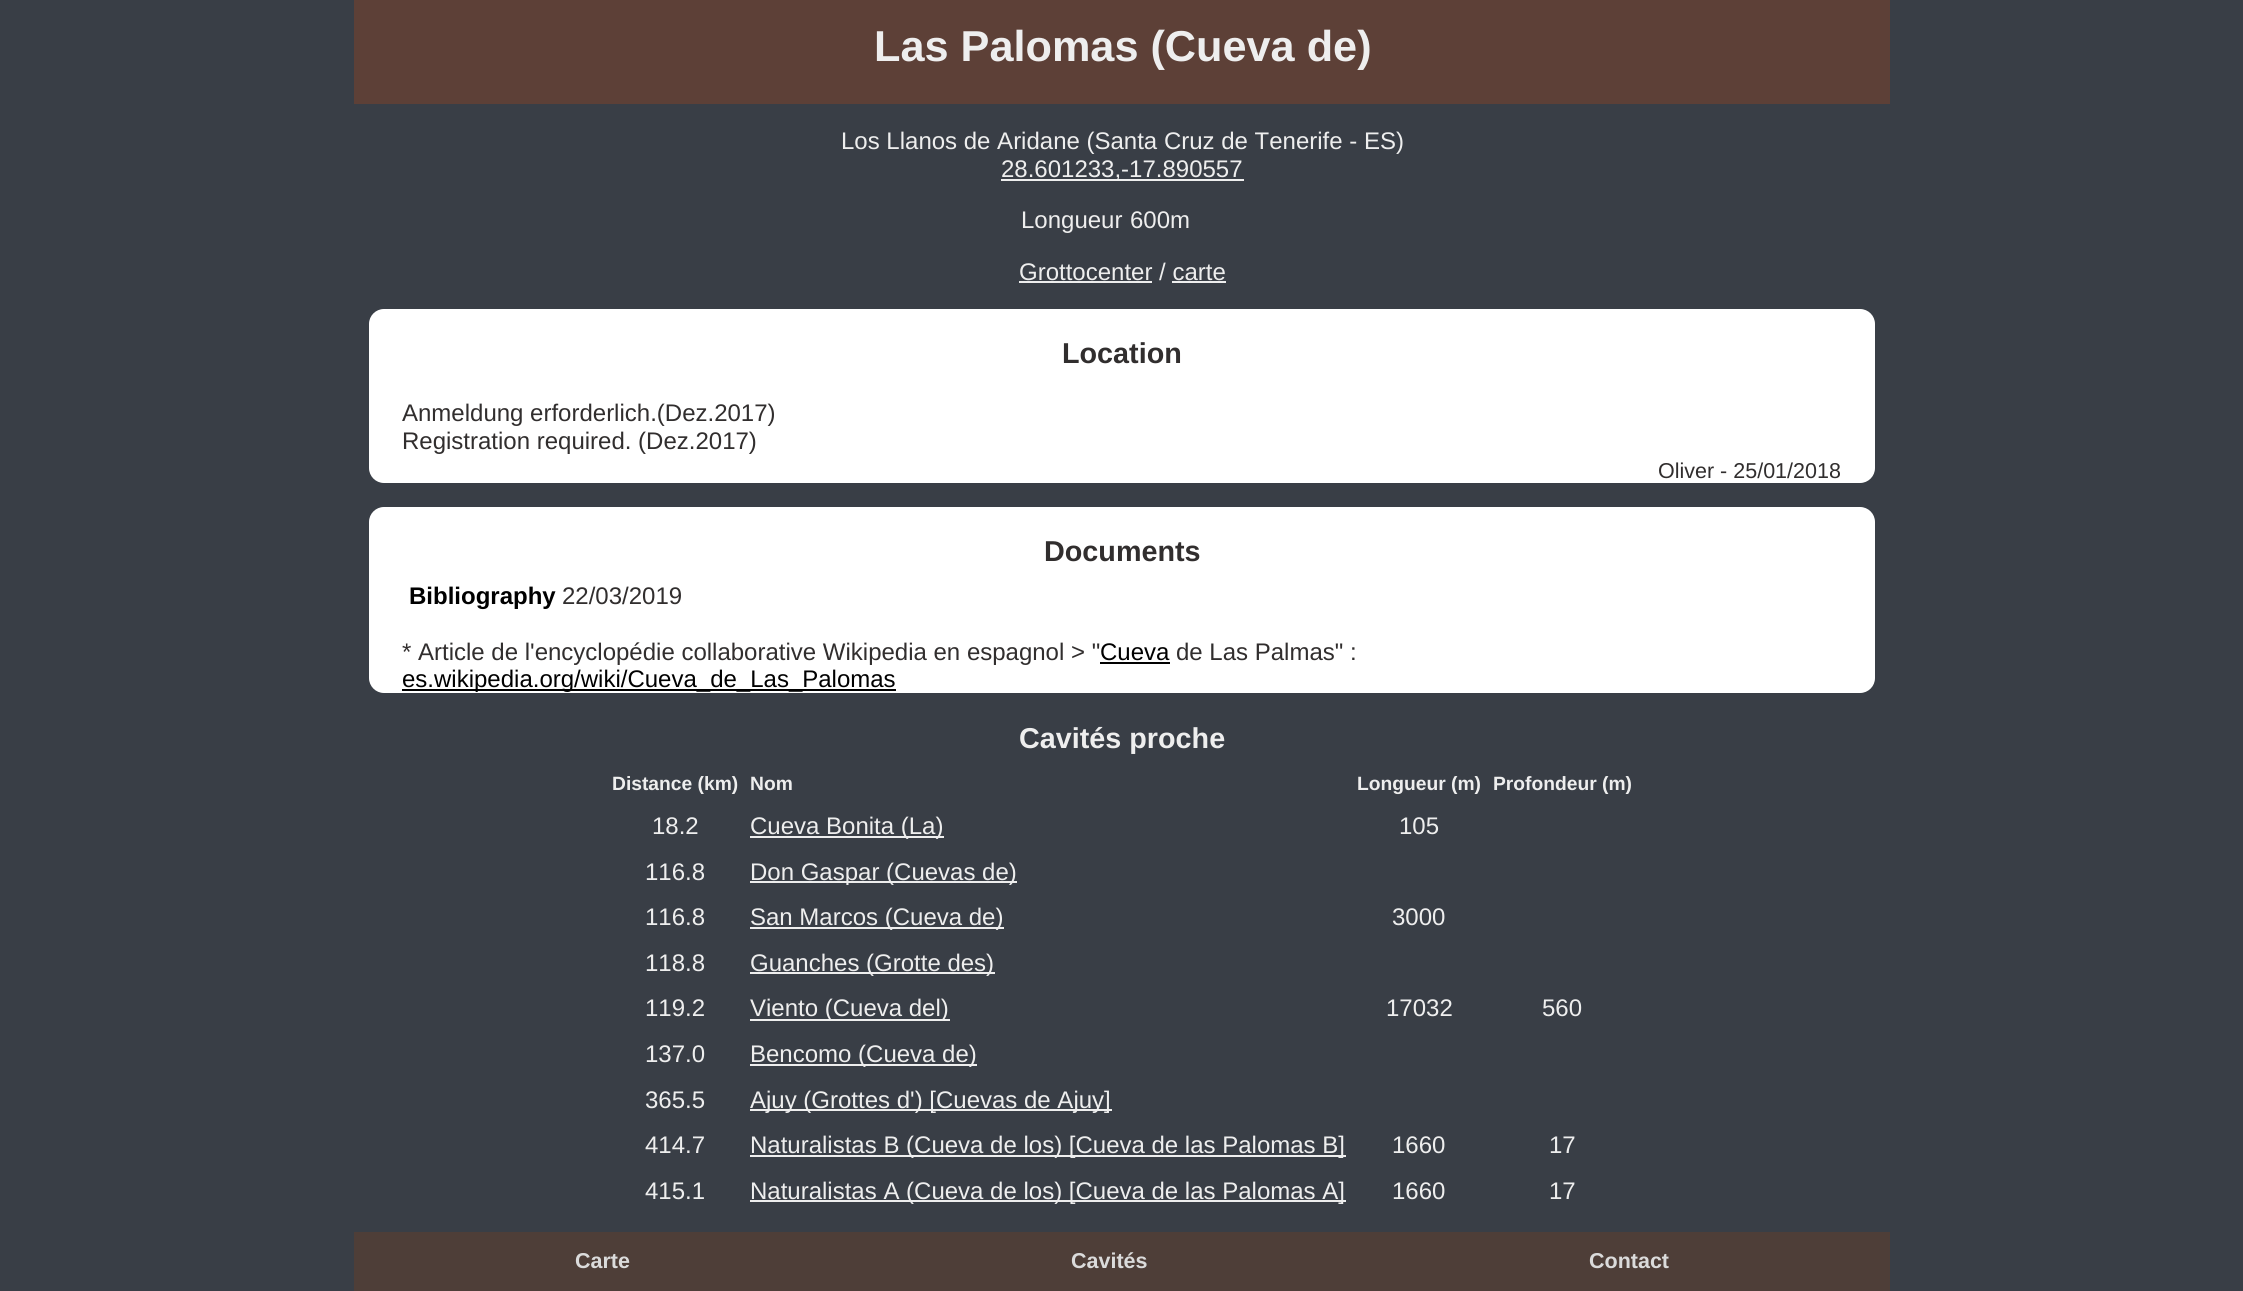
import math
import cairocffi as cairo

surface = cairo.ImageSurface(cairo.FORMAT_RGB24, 2243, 1291)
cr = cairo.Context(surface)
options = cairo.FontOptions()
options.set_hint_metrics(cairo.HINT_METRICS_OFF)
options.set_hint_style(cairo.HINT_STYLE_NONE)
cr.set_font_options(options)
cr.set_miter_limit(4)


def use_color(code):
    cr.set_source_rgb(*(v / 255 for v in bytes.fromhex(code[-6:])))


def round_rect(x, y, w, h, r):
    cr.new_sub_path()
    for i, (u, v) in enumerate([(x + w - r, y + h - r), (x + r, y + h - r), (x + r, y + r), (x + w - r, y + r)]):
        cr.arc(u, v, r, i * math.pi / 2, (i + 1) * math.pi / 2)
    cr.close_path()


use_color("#393e46")
cr.paint()
use_color("#5d4037")
cr.rectangle(354, 0, 1536, 104)
cr.fill()
cr.select_font_face("Liberation Sans", cairo.FONT_SLANT_NORMAL, cairo.FONT_WEIGHT_BOLD)
cr.set_font_size(43.25)
use_color("#eeeeee")
cr.move_to(874, 61)
cr.show_text("Las Palomas (Cueva de)")
cr.select_font_face("Liberation Sans")
cr.set_font_size(24)
cr.move_to(841, 149)
cr.show_text("Los Llanos de Aridane (Santa Cruz de Tenerife - ES)")
cr.rectangle(1001, 179, 243, 2)
cr.fill()
cr.move_to(1001, 177)
cr.show_text("28.601233,-17.890557")
cr.move_to(1021, 228)
cr.show_text("Longueur")
cr.move_to(1130, 228)
cr.show_text("600m")
cr.move_to(1019, 280)
cr.show_text("Grottocenter / carte")
cr.rectangle(1019, 281, 133, 2)
cr.fill()
cr.rectangle(1172, 281, 54, 2)
cr.fill()
use_color("#ffffff")
round_rect(369, 309, 1506, 174, 15)
cr.fill()
cr.select_font_face("Liberation Sans", cairo.FONT_SLANT_NORMAL, cairo.FONT_WEIGHT_BOLD)
cr.set_font_size(28.75)
use_color("#312e2e")
cr.move_to(1062, 363)
cr.show_text("Location")
cr.select_font_face("Liberation Sans")
cr.set_font_size(24)
cr.move_to(402, 421)
cr.show_text("Anmeldung erforderlich.(Dez.2017)")
cr.move_to(402, 449)
cr.show_text("Registration required. (Dez.2017)")
cr.set_font_size(21.5)
cr.move_to(1658, 478)
cr.show_text("Oliver - 25/01/2018")
use_color("#ffffff")
round_rect(369, 507, 1506, 186, 15)
cr.fill()
cr.select_font_face("Liberation Sans", cairo.FONT_SLANT_NORMAL, cairo.FONT_WEIGHT_BOLD)
cr.set_font_size(28.75)
use_color("#312e2e")
cr.move_to(1044, 561)
cr.show_text("Documents")
cr.set_font_size(24)
use_color("#000000")
cr.move_to(409, 604)
cr.show_text("Bibliography")
cr.select_font_face("Liberation Sans")
use_color("#312e2e")
cr.move_to(562, 604)
cr.show_text("22/03/2019")
cr.move_to(402, 660)
cr.show_text("* Article de l'encyclopédie collaborative Wikipedia en espagnol > \"")
use_color("#000000")
cr.move_to(1100, 660)
cr.show_text("Cueva")
cr.rectangle(1100, 662, 70, 2)
cr.fill()
use_color("#312e2e")
cr.move_to(1176, 660)
cr.show_text("de Las Palmas\" :")
use_color("#000000")
cr.rectangle(402, 689, 494, 2)
cr.fill()
cr.move_to(402, 687)
cr.show_text("es.wikipedia.org/wiki/Cueva_de_Las_Palomas")
cr.select_font_face("Liberation Sans", cairo.FONT_SLANT_NORMAL, cairo.FONT_WEIGHT_BOLD)
cr.set_font_size(28.75)
use_color("#eeeeee")
cr.move_to(1019, 748)
cr.show_text("Cavités proche")
cr.set_font_size(19.25)
cr.move_to(612, 790)
cr.show_text("Distance (km)")
cr.move_to(750, 790)
cr.show_text("Nom")
cr.move_to(1357, 790)
cr.show_text("Longueur (m)")
cr.move_to(1493, 790)
cr.show_text("Profondeur (m)")
cr.select_font_face("Liberation Sans")
cr.set_font_size(24)
cr.move_to(652, 834)
cr.show_text("18.2")
cr.rectangle(750, 836, 194, 2)
cr.fill()
cr.move_to(750, 834)
cr.show_text("Cueva Bonita (La)")
cr.move_to(1399, 834)
cr.show_text("105")
cr.move_to(645, 880)
cr.show_text("116.8")
cr.rectangle(750, 881, 267, 2)
cr.fill()
cr.move_to(750, 880)
cr.show_text("Don Gaspar (Cuevas de)")
cr.move_to(645, 925)
cr.show_text("116.8")
cr.rectangle(750, 927, 254, 2)
cr.fill()
cr.move_to(750, 925)
cr.show_text("San Marcos (Cueva de)")
cr.move_to(1392, 925)
cr.show_text("3000")
cr.move_to(645, 971)
cr.show_text("118.8")
cr.rectangle(750, 972, 245, 2)
cr.fill()
cr.move_to(750, 971)
cr.show_text("Guanches (Grotte des)")
cr.move_to(645, 1016)
cr.show_text("119.2")
cr.rectangle(750, 1019, 200, 2)
cr.fill()
cr.move_to(750, 1016)
cr.show_text("Viento (Cueva del)")
cr.move_to(1386, 1016)
cr.show_text("17032")
cr.move_to(1542, 1016)
cr.show_text("560")
cr.move_to(645, 1062)
cr.show_text("137.0")
cr.rectangle(750, 1064, 227, 2)
cr.fill()
cr.move_to(750, 1062)
cr.show_text("Bencomo (Cueva de)")
cr.move_to(645, 1108)
cr.show_text("365.5")
cr.rectangle(750, 1109, 362, 2)
cr.fill()
cr.move_to(750, 1108)
cr.show_text("Ajuy (Grottes d') [Cuevas de Ajuy]")
cr.move_to(645, 1153)
cr.show_text("414.7")
cr.rectangle(750, 1155, 596, 2)
cr.fill()
cr.move_to(750, 1153)
cr.show_text("Naturalistas B (Cueva de los) [Cueva de las Palomas B]")
cr.move_to(1392, 1153)
cr.show_text("1660")
cr.move_to(1549, 1153)
cr.show_text("17")
cr.move_to(645, 1199)
cr.show_text("415.1")
cr.rectangle(750, 1200, 596, 2)
cr.fill()
cr.move_to(750, 1199)
cr.show_text("Naturalistas A (Cueva de los) [Cueva de las Palomas A]")
cr.move_to(1392, 1199)
cr.show_text("1660")
cr.move_to(1549, 1199)
cr.show_text("17")
use_color("#4e3e38")
cr.rectangle(354, 1232, 1536, 59)
cr.fill()
cr.select_font_face("Liberation Sans", cairo.FONT_SLANT_NORMAL, cairo.FONT_WEIGHT_BOLD)
cr.set_font_size(21.5)
use_color("#dbdbdb")
cr.move_to(575, 1268)
cr.show_text("Carte")
cr.move_to(1071, 1268)
cr.show_text("Cavités")
cr.move_to(1589, 1268)
cr.show_text("Contact")
surface.write_to_png("result.png")
